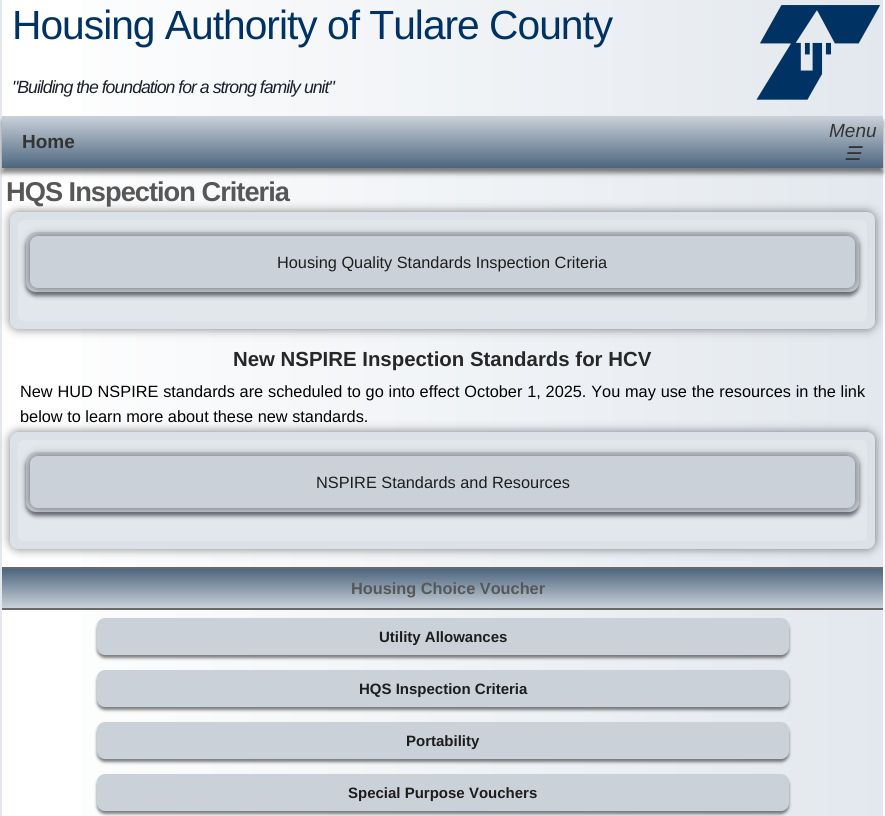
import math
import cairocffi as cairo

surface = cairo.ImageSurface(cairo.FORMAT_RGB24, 885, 816)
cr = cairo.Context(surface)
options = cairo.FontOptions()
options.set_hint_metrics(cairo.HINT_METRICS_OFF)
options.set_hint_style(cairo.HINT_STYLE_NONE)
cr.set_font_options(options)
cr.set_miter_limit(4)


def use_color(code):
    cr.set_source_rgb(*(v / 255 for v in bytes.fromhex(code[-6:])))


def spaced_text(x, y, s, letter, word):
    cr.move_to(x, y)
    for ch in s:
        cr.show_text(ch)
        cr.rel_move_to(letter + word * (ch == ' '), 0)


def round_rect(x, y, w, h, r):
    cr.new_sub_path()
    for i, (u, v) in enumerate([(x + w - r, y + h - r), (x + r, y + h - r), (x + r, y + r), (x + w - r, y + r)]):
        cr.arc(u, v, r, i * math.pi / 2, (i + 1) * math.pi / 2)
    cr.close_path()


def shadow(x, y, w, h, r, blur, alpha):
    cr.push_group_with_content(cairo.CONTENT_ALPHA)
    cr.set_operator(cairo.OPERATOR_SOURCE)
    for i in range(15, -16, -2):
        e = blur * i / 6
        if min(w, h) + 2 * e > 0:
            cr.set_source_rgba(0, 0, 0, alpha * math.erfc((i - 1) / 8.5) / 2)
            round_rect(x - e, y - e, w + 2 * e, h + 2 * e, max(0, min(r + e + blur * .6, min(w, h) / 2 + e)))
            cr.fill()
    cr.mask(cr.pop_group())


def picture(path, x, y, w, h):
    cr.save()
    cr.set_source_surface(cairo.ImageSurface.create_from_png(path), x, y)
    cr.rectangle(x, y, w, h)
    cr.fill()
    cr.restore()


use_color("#ffffff")
cr.paint()
gradient = cairo.LinearGradient(-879, 410, 2, 410)
gradient.add_color_stop_rgba(0, 1, 1, 1, 1)
gradient.add_color_stop_rgba(1, 0.89, 0.91, 0.933, 1)
cr.set_source(gradient)
cr.rectangle(0, 0, 2, 816)
cr.fill()
gradient = cairo.LinearGradient(2, 410, 883, 410)
gradient.add_color_stop_rgba(0, 1, 1, 1, 1)
gradient.add_color_stop_rgba(1, 0.89, 0.91, 0.933, 1)
cr.set_source(gradient)
cr.rectangle(81, 0, 802, 816)
cr.fill()
cr.select_font_face("Liberation Sans")
cr.set_font_size(40.75)
use_color("#003264")
spaced_text(12, 39, "Housing Authority of Tulare County", -1, 0)
picture("img1.png", 756, 5, 125, 95)
cr.select_font_face("Liberation Sans", cairo.FONT_SLANT_ITALIC)
cr.set_font_size(17.7)
use_color("#1b202c")
spaced_text(12, 93, "\"Building the foundation for a strong family unit\"", -1, 0)
use_color("#000000")
shadow(2, 121, 881, 52, 0, 2.5, 0.5)
gradient = cairo.LinearGradient(443, 116, 443, 168)
gradient.add_color_stop_rgba(0, 0.792, 0.82, 0.851, 1)
gradient.add_color_stop_rgba(1, 0.302, 0.4, 0.498, 1)
cr.set_source(gradient)
cr.rectangle(2, 116, 881, 52)
cr.fill()
cr.select_font_face("Liberation Sans", cairo.FONT_SLANT_NORMAL, cairo.FONT_WEIGHT_BOLD)
cr.set_font_size(19)
use_color("#333333")
cr.move_to(22, 148)
cr.show_text("Home")
cr.select_font_face("Liberation Sans", cairo.FONT_SLANT_ITALIC)
cr.move_to(829, 137)
cr.show_text("Menu")
cr.select_font_face("DejaVu Sans", cairo.FONT_SLANT_ITALIC)
cr.move_to(844, 160)
cr.show_text("☰")
use_color("#000000")
shadow(10, 212, 865, 117, 8, 5, 0.5)
cr.select_font_face("Liberation Sans", cairo.FONT_SLANT_NORMAL, cairo.FONT_WEIGHT_BOLD)
cr.set_font_size(27.25)
use_color("#575757")
spaced_text(6, 201, "HQS Inspection Criteria", -1, 0)
use_color("#dbe1e7")
round_rect(10, 212, 865, 117, 8)
cr.fill()
use_color("#e2e7ec")
round_rect(18, 220, 849, 101, 6)
cr.fill()
use_color("#000000")
shadow(26, 236, 833, 60, 10, 2, 0.5)
use_color("#cad1d9")
round_rect(26, 232, 833, 60, 10)
cr.fill()
use_color("#000000")
shadow(30, 236, 825, 52, 8, 5, 0.5)
use_color("#cad1d9")
round_rect(30, 236, 825, 52, 8)
cr.fill()
cr.select_font_face("Liberation Sans")
cr.set_font_size(16.32)
use_color("#1d1d1d")
cr.move_to(277, 268)
cr.show_text("Housing Quality Standards Inspection Criteria")
cr.select_font_face("Liberation Sans", cairo.FONT_SLANT_NORMAL, cairo.FONT_WEIGHT_BOLD)
cr.set_font_size(20.4)
use_color("#272727")
cr.move_to(233, 366)
cr.show_text("New NSPIRE Inspection Standards for HCV")
cr.select_font_face("Liberation Sans")
cr.set_font_size(16.32)
use_color("#000000")
spaced_text(20, 397, "New HUD NSPIRE standards are scheduled to go into effect October 1, 2025. You may use the resources in the link", 0, 0.25)
use_color("#000000")
shadow(10, 432, 865, 117, 8, 5, 0.5)
use_color("#000000")
cr.move_to(20, 422)
cr.show_text("below to learn more about these new standards.")
use_color("#dbe1e7")
round_rect(10, 432, 865, 117, 8)
cr.fill()
use_color("#e2e7ec")
round_rect(18, 440, 849, 101, 6)
cr.fill()
use_color("#000000")
shadow(26, 456, 833, 60, 10, 2, 0.5)
use_color("#cad1d9")
round_rect(26, 452, 833, 60, 10)
cr.fill()
use_color("#000000")
shadow(30, 456, 825, 52, 8, 5, 0.5)
use_color("#cad1d9")
round_rect(30, 456, 825, 52, 8)
cr.fill()
use_color("#1d1d1d")
cr.move_to(316, 488)
cr.show_text("NSPIRE Standards and Resources")
gradient = cairo.LinearGradient(443, 569, 443, 608)
gradient.add_color_stop_rgba(0, 0.302, 0.4, 0.498, 1)
gradient.add_color_stop_rgba(1, 0.792, 0.82, 0.851, 1)
cr.set_source(gradient)
cr.rectangle(2, 569, 881, 39)
cr.fill()
use_color("#696969")
cr.rectangle(2, 567, 881, 2)
cr.fill()
cr.rectangle(2, 608, 881, 2)
cr.fill()
cr.select_font_face("Liberation Sans", cairo.FONT_SLANT_NORMAL, cairo.FONT_WEIGHT_BOLD)
use_color("#575757")
cr.move_to(351, 594)
cr.show_text("Housing Choice Voucher")
use_color("#000000")
shadow(97, 621, 692, 37, 8, 1.5, 0.5)
use_color("#cad1d9")
round_rect(97, 618, 692, 37, 8)
cr.fill()
cr.set_font_size(15)
use_color("#1d1d1d")
cr.move_to(379, 642)
cr.show_text("Utility Allowances")
use_color("#000000")
shadow(97, 673, 692, 37, 8, 1.5, 0.5)
use_color("#cad1d9")
round_rect(97, 670, 692, 37, 8)
cr.fill()
use_color("#1d1d1d")
cr.move_to(359, 694)
cr.show_text("HQS Inspection Criteria")
use_color("#000000")
shadow(97, 725, 692, 37, 8, 1.5, 0.5)
use_color("#cad1d9")
round_rect(97, 722, 692, 37, 8)
cr.fill()
use_color("#1d1d1d")
cr.move_to(406, 746)
cr.show_text("Portability")
use_color("#000000")
shadow(97, 777, 692, 37, 8, 1.5, 0.5)
use_color("#cad1d9")
round_rect(97, 774, 692, 37, 8)
cr.fill()
use_color("#1d1d1d")
cr.move_to(348, 798)
cr.show_text("Special Purpose Vouchers")
surface.write_to_png("result.png")
